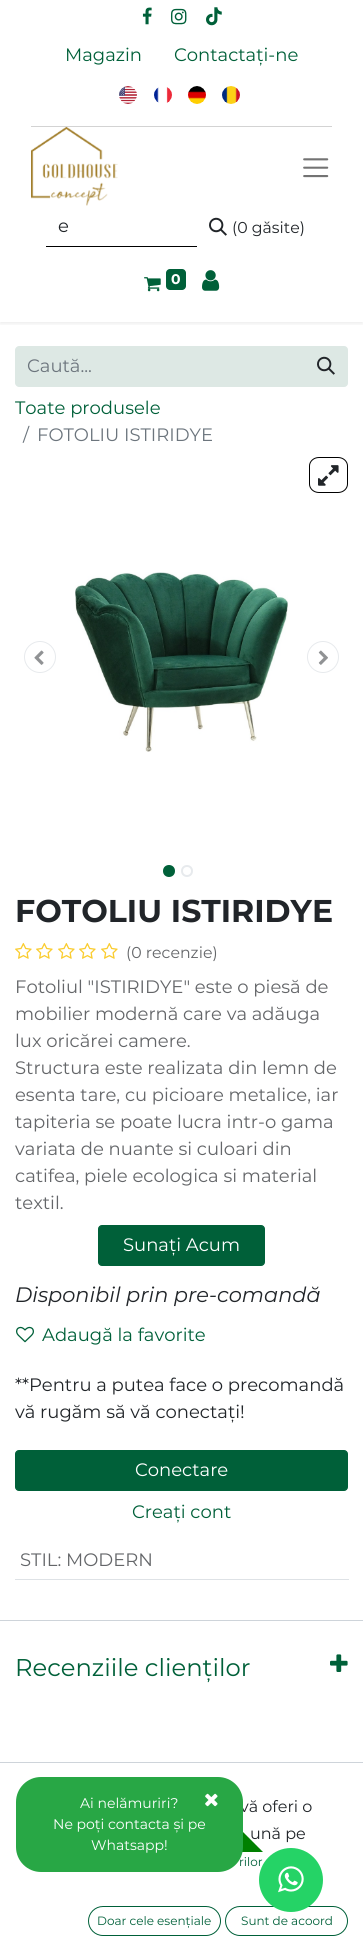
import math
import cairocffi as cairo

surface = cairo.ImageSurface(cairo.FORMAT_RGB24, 363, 1952)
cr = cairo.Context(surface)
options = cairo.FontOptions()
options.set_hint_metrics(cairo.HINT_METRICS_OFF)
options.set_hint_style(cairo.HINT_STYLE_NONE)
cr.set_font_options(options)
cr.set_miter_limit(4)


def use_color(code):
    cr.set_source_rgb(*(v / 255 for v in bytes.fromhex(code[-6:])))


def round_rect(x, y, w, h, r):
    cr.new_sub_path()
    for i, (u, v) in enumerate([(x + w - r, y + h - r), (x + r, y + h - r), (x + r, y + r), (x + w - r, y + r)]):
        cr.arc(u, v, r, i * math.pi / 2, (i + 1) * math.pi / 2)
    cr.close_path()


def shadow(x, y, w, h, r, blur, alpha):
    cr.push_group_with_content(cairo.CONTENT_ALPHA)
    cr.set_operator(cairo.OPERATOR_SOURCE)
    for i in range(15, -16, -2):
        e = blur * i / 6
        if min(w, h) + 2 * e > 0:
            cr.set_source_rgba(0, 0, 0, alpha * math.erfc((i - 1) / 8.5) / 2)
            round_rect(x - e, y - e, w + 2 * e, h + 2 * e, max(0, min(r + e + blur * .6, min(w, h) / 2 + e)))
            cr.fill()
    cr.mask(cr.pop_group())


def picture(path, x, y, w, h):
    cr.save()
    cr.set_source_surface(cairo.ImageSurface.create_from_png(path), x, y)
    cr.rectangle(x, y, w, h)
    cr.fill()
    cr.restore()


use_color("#ffffff")
cr.paint()
cr.save()
cr.rectangle(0, 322, 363, 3)
cr.clip()
use_color("#000000")
shadow(0, 2, 363, 322, 0, 2, 0.07)
cr.restore()
use_color("#d3d3d3")
cr.rectangle(31, 126, 301, 1)
cr.fill()
picture("img1.png", 142, 7, 10, 18)
picture("img2.png", 171, 8, 16, 17)
picture("img3.png", 206, 7, 16, 19)
cr.select_font_face("Montserrat")
cr.set_font_size(18)
use_color("#006039")
cr.move_to(65, 61)
cr.show_text("Magazin")
cr.move_to(174, 61)
cr.show_text("Contactați-ne")
picture("img4.png", 119, 86, 18, 18)
picture("img5.png", 154, 87, 18, 16)
picture("img6.png", 188, 86, 18, 18)
picture("img7.png", 222, 86, 18, 18)
picture("img8.png", 31, 127, 87, 79)
picture("img9.png", 303, 158, 26, 20)
use_color("#000000")
cr.rectangle(46, 246, 152, 1)
cr.fill()
use_color("#212529")
cr.move_to(58, 232)
cr.show_text("e")
use_color("#ffffff")
cr.new_path()
cr.move_to(197, 207)
cr.line_to(313, 207)
cr.curve_to(315, 207, 317, 209, 317, 211)
cr.line_to(317, 243)
cr.curve_to(317, 245, 315, 247, 313, 247)
cr.line_to(197, 247)
cr.close_path()
cr.fill()
picture("img10.png", 209, 217, 18, 19)
cr.set_font_size(15.75)
use_color("#212529")
cr.move_to(232, 233)
cr.show_text("(0 găsite)")
picture("img11.png", 144, 277, 17, 15)
use_color("#006039")
round_rect(166, 269, 20, 21, 4)
cr.fill()
cr.select_font_face("Montserrat", cairo.FONT_SLANT_NORMAL, cairo.FONT_WEIGHT_BOLD)
cr.set_font_size(14)
use_color("#ffffff")
cr.move_to(171, 284)
cr.show_text("0")
picture("img12.png", 202, 270, 18, 21)
use_color("#dde8e4")
cr.new_path()
cr.move_to(19, 346)
cr.line_to(305, 346)
cr.line_to(305, 387)
cr.line_to(19, 387)
cr.curve_to(17, 387, 15, 385, 15, 383)
cr.line_to(15, 350)
cr.curve_to(15, 348, 17, 346, 19, 346)
cr.close_path()
cr.fill()
cr.select_font_face("Montserrat")
cr.set_font_size(18)
use_color("#6c757d")
cr.move_to(27, 372)
cr.show_text("Caută...")
use_color("#dde8e4")
cr.new_path()
cr.move_to(304.5, 346.5)
cr.line_to(344, 346.5)
cr.curve_to(346, 346.5, 347.5, 348, 347.5, 350)
cr.line_to(347.5, 383)
cr.curve_to(347.5, 385, 346, 386.5, 344, 386.5)
cr.line_to(304.5, 386.5)
cr.close_path()
cr.fill_preserve()
cr.set_line_width(1)
cr.stroke()
picture("img13.png", 317, 356, 18, 19)
use_color("#006039")
cr.move_to(15, 414)
cr.show_text("Toate produsele")
use_color("#6c757d")
cr.move_to(23, 441)
cr.show_text("/")
cr.move_to(37, 441)
cr.show_text("FOTOLIU ISTIRIDYE")
cr.new_path()
cr.arc(40, 657, 15.5, 0, 2 * math.pi)
use_color("#e7eaed")
cr.stroke()
picture("img14.png", 34, 650, 10, 15)
cr.new_path()
cr.move_to(319, 457.5)
cr.line_to(338, 457.5)
cr.curve_to(343.5, 457.5, 347.5, 461.5, 347.5, 466)
cr.line_to(347.5, 484)
cr.curve_to(347.5, 488.5, 343.5, 492.5, 338, 492.5)
cr.line_to(319, 492.5)
cr.curve_to(313.5, 492.5, 309.5, 488.5, 309.5, 484)
cr.line_to(309.5, 466)
cr.curve_to(309.5, 461.5, 313.5, 457.5, 319, 457.5)
cr.close_path()
use_color("#000000")
cr.stroke()
picture("img15.png", 318, 465, 21, 21)
picture("img16.png", 75, 572, 213, 180)
cr.arc(323, 657, 15.5, 0, 2 * math.pi)
use_color("#e7eaed")
cr.stroke()
picture("img17.png", 318, 650, 10, 15)
use_color("#006039")
cr.arc(169, 871, 5, 0, 2 * math.pi)
cr.fill_preserve()
cr.set_line_width(2)
cr.stroke()
cr.arc(187, 871, 5, 0, 2 * math.pi)
use_color("#e7eaed")
cr.stroke()
cr.select_font_face("Montserrat", cairo.FONT_SLANT_NORMAL, cairo.FONT_WEIGHT_BOLD)
cr.set_font_size(31.5)
use_color("#212529")
cr.move_to(15, 922)
cr.show_text("FOTOLIU ISTIRIDYE")
picture("img18.png", 15, 942, 17, 17)
picture("img18.png", 36, 942, 17, 17)
picture("img18.png", 58, 942, 17, 17)
picture("img18.png", 79, 942, 17, 17)
picture("img18.png", 101, 942, 17, 17)
cr.select_font_face("Montserrat")
cr.set_font_size(15.75)
use_color("#646669")
cr.move_to(126, 958)
cr.show_text("(0 recenzie)")
cr.set_font_size(18)
cr.move_to(15, 993)
cr.show_text("Fotoliul \"ISTIRIDYE\" este o piesă de")
cr.move_to(15, 1020)
cr.show_text("mobilier modernă care va adăuga")
cr.move_to(15, 1047)
cr.show_text("lux oricărei camere.")
cr.move_to(15, 1074)
cr.show_text("Structura este realizata din lemn de")
cr.move_to(15, 1101)
cr.show_text("esenta tare, cu picioare metalice, iar")
cr.move_to(15, 1128)
cr.show_text("tapiteria se poate lucra intr-o gama")
cr.move_to(15, 1155)
cr.show_text("variata de nuante si culoari din")
cr.move_to(15, 1182)
cr.show_text("catifea, piele ecologica si material")
cr.move_to(15, 1209)
cr.show_text("textil.")
use_color("#006039")
round_rect(98.5, 1225.5, 166, 40, 3.5)
cr.fill_preserve()
cr.set_line_width(1)
cr.stroke()
use_color("#ffffff")
cr.move_to(123, 1251)
cr.show_text("Sunați Acum")
cr.select_font_face("Montserrat", cairo.FONT_SLANT_ITALIC)
cr.set_font_size(20.9)
use_color("#212529")
cr.move_to(15, 1302)
cr.show_text("Disponibil prin pre-comandă")
picture("img19.png", 16, 1326, 18, 17)
cr.select_font_face("Montserrat")
cr.set_font_size(18)
use_color("#006039")
cr.move_to(42, 1341)
cr.show_text("Adaugă la favorite")
use_color("#212529")
cr.move_to(15, 1391)
cr.show_text("**Pentru a putea face o precomandă")
cr.move_to(15, 1418)
cr.show_text("vă rugăm să vă conectați!")
use_color("#006039")
round_rect(15.5, 1450.5, 332, 40, 3.5)
cr.fill_preserve()
cr.stroke()
use_color("#ffffff")
cr.move_to(135, 1476)
cr.show_text("Conectare")
use_color("#006039")
cr.move_to(132, 1518)
cr.show_text("Creați cont")
use_color("#dee2e6")
cr.rectangle(15, 1579, 334, 1)
cr.fill()
use_color("#646669")
cr.move_to(20, 1566)
cr.show_text("STIL: MODERN")
use_color("#ced4da")
cr.rectangle(0, 1620, 363, 1)
cr.fill()
cr.set_font_size(24.25)
use_color("#006039")
cr.move_to(15, 1676)
cr.show_text("Recenziile clienților")
picture("img20.png", 330, 1654, 18, 18)
use_color("#ced4da")
cr.rectangle(0, 1762, 363, 1)
cr.fill()
cr.set_font_size(16)
use_color("#212529")
cr.move_to(250, 1839)
cr.show_text("ună pe")
use_color("#008000")
cr.new_path()
cr.move_to(263, 1852)
cr.line_to(243, 1832)
cr.line_to(41, 1832)
cr.curve_to(27, 1832, 16, 1830, 16, 1827)
cr.curve_to(16, 1841, 27, 1852, 41, 1852)
cr.close_path()
cr.fill()
use_color("#212529")
cr.move_to(240, 1812)
cr.show_text("vă oferi o")
cr.set_font_size(12)
use_color("#006039")
cr.move_to(239, 1866)
cr.show_text("rilor")
use_color("#28a745")
round_rect(16, 1777, 227, 95, 25)
cr.fill()
cr.set_font_size(14)
use_color("#ffffff")
cr.move_to(80, 1808)
cr.show_text("Ai nelămuriri?")
picture("img21.png", 205, 1793, 13, 14)
cr.move_to(53, 1829)
cr.show_text("Ne poți contacta și pe")
cr.move_to(91, 1850)
cr.show_text("Whatsapp!")
round_rect(88.5, 1906.5, 132, 29, 14.5)
use_color("#006039")
cr.stroke()
cr.set_font_size(12)
cr.move_to(97, 1925)
cr.show_text("Doar cele esențiale")
round_rect(225.5, 1906.5, 122, 29, 14.5)
cr.stroke()
cr.move_to(241, 1925)
cr.show_text("Sunt de acoord")
use_color("#25d366")
cr.new_path()
cr.arc(291, 1880, 32, 0, 2 * math.pi)
cr.fill()
picture("img22.png", 278, 1866, 26, 27)
surface.write_to_png("result.png")
